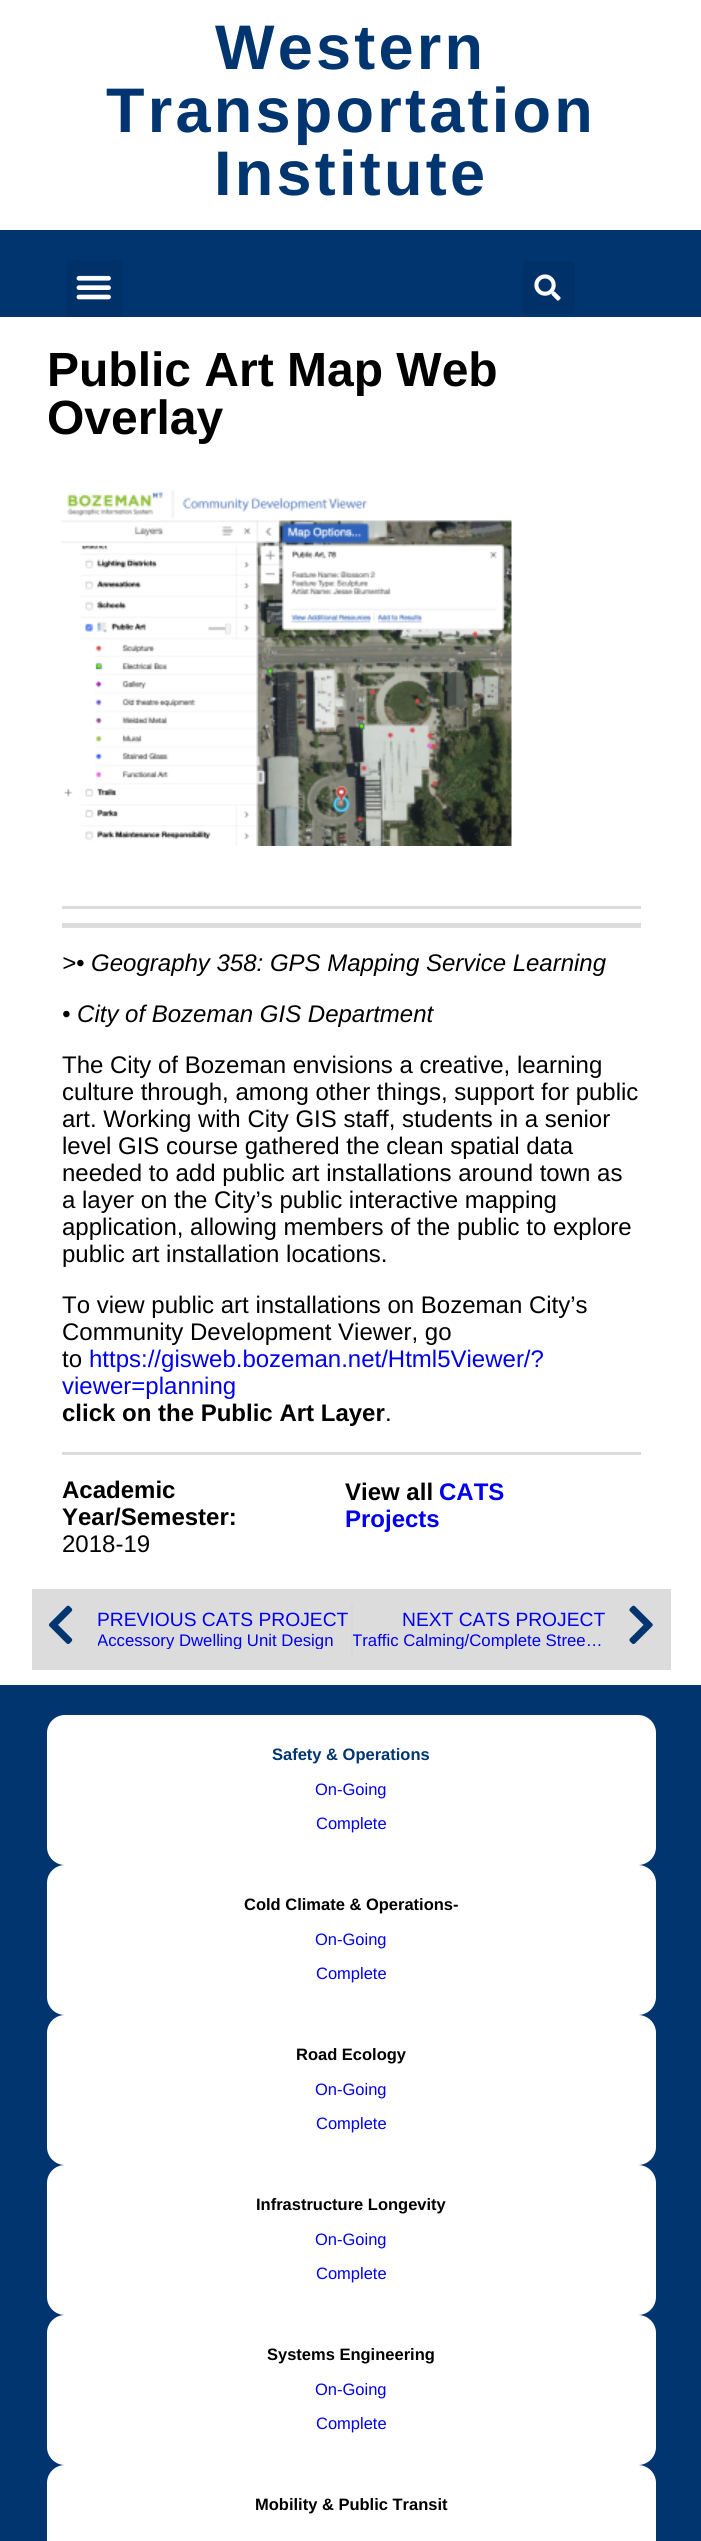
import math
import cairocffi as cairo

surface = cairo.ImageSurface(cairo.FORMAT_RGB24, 701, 2541)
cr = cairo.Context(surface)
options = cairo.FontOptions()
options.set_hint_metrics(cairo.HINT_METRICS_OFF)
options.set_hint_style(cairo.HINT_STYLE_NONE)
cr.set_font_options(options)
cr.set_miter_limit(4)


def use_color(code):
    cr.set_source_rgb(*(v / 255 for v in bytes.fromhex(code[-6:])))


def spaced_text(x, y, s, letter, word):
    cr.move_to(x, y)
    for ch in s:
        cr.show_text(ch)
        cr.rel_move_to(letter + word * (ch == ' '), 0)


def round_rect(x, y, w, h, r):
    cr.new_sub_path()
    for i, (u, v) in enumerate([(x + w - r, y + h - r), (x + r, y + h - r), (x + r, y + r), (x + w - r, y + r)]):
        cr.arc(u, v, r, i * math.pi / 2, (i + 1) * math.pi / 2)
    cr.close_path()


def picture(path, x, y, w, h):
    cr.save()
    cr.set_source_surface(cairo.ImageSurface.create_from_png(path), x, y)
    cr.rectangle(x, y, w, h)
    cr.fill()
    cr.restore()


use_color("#ffffff")
cr.paint()
cr.select_font_face("Liberation Sans", cairo.FONT_SLANT_NORMAL, cairo.FONT_WEIGHT_BOLD)
cr.set_font_size(63)
use_color("#00356f")
spaced_text(215, 69, "Western", 3.25, 0)
spaced_text(106, 132, "Transportation", 3.25, 0)
spaced_text(214, 195, "Institute", 3.25, 0)
cr.rectangle(0, 230, 701, 87)
cr.fill()
use_color("#003269")
cr.rectangle(66, 260, 57, 57)
cr.fill()
picture("img1.png", 76, 275, 35, 25)
round_rect(522, 261, 53, 53, 5)
cr.fill()
picture("img2.png", 534, 274, 27, 27)
cr.set_font_size(48)
use_color("#000000")
cr.move_to(47, 386)
cr.show_text("Public Art Map Web")
cr.move_to(47, 434)
cr.show_text("Overlay")
picture("img3.png", 61, 490, 451, 356)
use_color("#dcdcdc")
cr.rectangle(62, 906, 579, 3)
cr.fill()
cr.rectangle(62, 923, 579, 5)
cr.fill()
cr.select_font_face("Liberation Sans", cairo.FONT_SLANT_ITALIC)
cr.set_font_size(24)
use_color("#000000")
cr.move_to(62, 971)
cr.show_text(">• Geography 358: GPS Mapping Service Learning")
cr.move_to(62, 1022)
cr.show_text("• City of Bozeman GIS Department")
cr.select_font_face("Liberation Sans")
cr.move_to(62, 1073)
cr.show_text("The City of Bozeman envisions a creative, learning")
cr.move_to(62, 1100)
cr.show_text("culture through, among other things, support for public")
cr.move_to(62, 1127)
cr.show_text("art. Working with City GIS staff, students in a senior")
cr.move_to(62, 1154)
cr.show_text("level GIS course gathered the clean spatial data")
cr.move_to(62, 1181)
cr.show_text("needed to add public art installations around town as")
cr.move_to(62, 1208)
cr.show_text("a layer on the City’s public interactive mapping")
cr.move_to(62, 1235)
cr.show_text("application, allowing members of the public to explore")
cr.move_to(62, 1262)
cr.show_text("public art installation locations.")
cr.move_to(62, 1313)
cr.show_text("To view public art installations on Bozeman City’s")
cr.move_to(62, 1340)
cr.show_text("Community Development Viewer, go")
cr.move_to(62, 1367)
cr.show_text("to")
use_color("#0000ee")
cr.move_to(89, 1367)
cr.show_text("https://gisweb.bozeman.net/Html5Viewer/?")
cr.move_to(62, 1394)
cr.show_text("viewer=planning")
cr.select_font_face("Liberation Sans", cairo.FONT_SLANT_NORMAL, cairo.FONT_WEIGHT_BOLD)
use_color("#000000")
cr.move_to(62, 1421)
cr.show_text("click on the Public Art Layer")
cr.select_font_face("Liberation Sans")
cr.move_to(385, 1421)
cr.show_text(".")
use_color("#dcdcdc")
cr.rectangle(62, 1452, 579, 3)
cr.fill()
cr.select_font_face("Liberation Sans", cairo.FONT_SLANT_NORMAL, cairo.FONT_WEIGHT_BOLD)
use_color("#000000")
cr.move_to(62, 1498)
cr.show_text("Academic")
cr.move_to(62, 1525)
cr.show_text("Year/Semester:")
cr.select_font_face("Liberation Sans")
cr.move_to(62, 1552)
cr.show_text("2018-19")
cr.select_font_face("Liberation Sans", cairo.FONT_SLANT_NORMAL, cairo.FONT_WEIGHT_BOLD)
cr.move_to(345, 1500)
cr.show_text("View all")
use_color("#0000ee")
cr.move_to(439, 1500)
cr.show_text("CATS")
cr.move_to(345, 1527)
cr.show_text("Projects")
use_color("#dcdcdc")
cr.rectangle(32, 1589, 639, 81)
cr.fill()
picture("img4.png", 48, 1605, 25, 39)
cr.select_font_face("Liberation Sans")
cr.set_font_size(19.25)
use_color("#0000ee")
cr.move_to(97, 1626)
cr.show_text("PREVIOUS CATS PROJECT")
cr.save()
cr.rectangle(98, 1631, 250, 18)
cr.clip()
cr.set_font_size(16.75)
cr.move_to(97, 1646)
cr.show_text("Accessory Dwelling Unit Design")
cr.restore()
use_color("#d5d8dc")
cr.rectangle(351, 1604, 2, 51)
cr.fill()
use_color("#0000ee")
cr.move_to(402, 1626)
cr.show_text("NEXT CATS PROJECT")
cr.save()
cr.rectangle(353, 1631, 252, 18)
cr.clip()
cr.set_font_size(16.75)
cr.move_to(352, 1646)
cr.show_text("Traffic Calming/Complete Stree…")
cr.restore()
picture("img5.png", 629, 1605, 24, 39)
use_color("#00356f")
cr.rectangle(0, 1685, 701, 856)
cr.fill()
use_color("#ffffff")
round_rect(47, 1715, 609, 150, 18)
cr.fill()
cr.select_font_face("Liberation Sans", cairo.FONT_SLANT_NORMAL, cairo.FONT_WEIGHT_BOLD)
cr.set_font_size(16.5)
use_color("#00356f")
cr.move_to(272, 1760)
cr.show_text("Safety & Operations")
cr.select_font_face("Liberation Sans")
use_color("#0000ee")
cr.move_to(315, 1795)
cr.show_text("On-Going")
cr.move_to(316, 1829)
cr.show_text("Complete")
use_color("#ffffff")
round_rect(47, 1865, 609, 150, 18)
cr.fill()
cr.select_font_face("Liberation Sans", cairo.FONT_SLANT_NORMAL, cairo.FONT_WEIGHT_BOLD)
use_color("#000000")
cr.move_to(244, 1910)
cr.show_text("Cold Climate & Operations-")
cr.select_font_face("Liberation Sans")
use_color("#0000ee")
cr.move_to(315, 1945)
cr.show_text("On-Going")
cr.move_to(316, 1979)
cr.show_text("Complete")
use_color("#ffffff")
round_rect(47, 2015, 609, 150, 18)
cr.fill()
cr.select_font_face("Liberation Sans", cairo.FONT_SLANT_NORMAL, cairo.FONT_WEIGHT_BOLD)
use_color("#000000")
cr.move_to(296, 2060)
cr.show_text("Road Ecology")
cr.select_font_face("Liberation Sans")
use_color("#0000ee")
cr.move_to(315, 2095)
cr.show_text("On-Going")
cr.move_to(316, 2129)
cr.show_text("Complete")
use_color("#ffffff")
round_rect(47, 2165, 609, 150, 18)
cr.fill()
cr.select_font_face("Liberation Sans", cairo.FONT_SLANT_NORMAL, cairo.FONT_WEIGHT_BOLD)
use_color("#000000")
cr.move_to(256, 2210)
cr.show_text("Infrastructure Longevity")
cr.select_font_face("Liberation Sans")
use_color("#0000ee")
cr.move_to(315, 2245)
cr.show_text("On-Going")
cr.move_to(316, 2279)
cr.show_text("Complete")
use_color("#ffffff")
round_rect(47, 2315, 609, 150, 18)
cr.fill()
cr.select_font_face("Liberation Sans", cairo.FONT_SLANT_NORMAL, cairo.FONT_WEIGHT_BOLD)
use_color("#000000")
cr.move_to(267, 2360)
cr.show_text("Systems Engineering")
cr.select_font_face("Liberation Sans")
use_color("#0000ee")
cr.move_to(315, 2395)
cr.show_text("On-Going")
cr.move_to(316, 2429)
cr.show_text("Complete")
use_color("#ffffff")
round_rect(47, 2465, 609, 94, 18)
cr.fill()
cr.select_font_face("Liberation Sans", cairo.FONT_SLANT_NORMAL, cairo.FONT_WEIGHT_BOLD)
use_color("#000000")
cr.move_to(255, 2510)
cr.show_text("Mobility & Public Transit")
surface.write_to_png("result.png")
